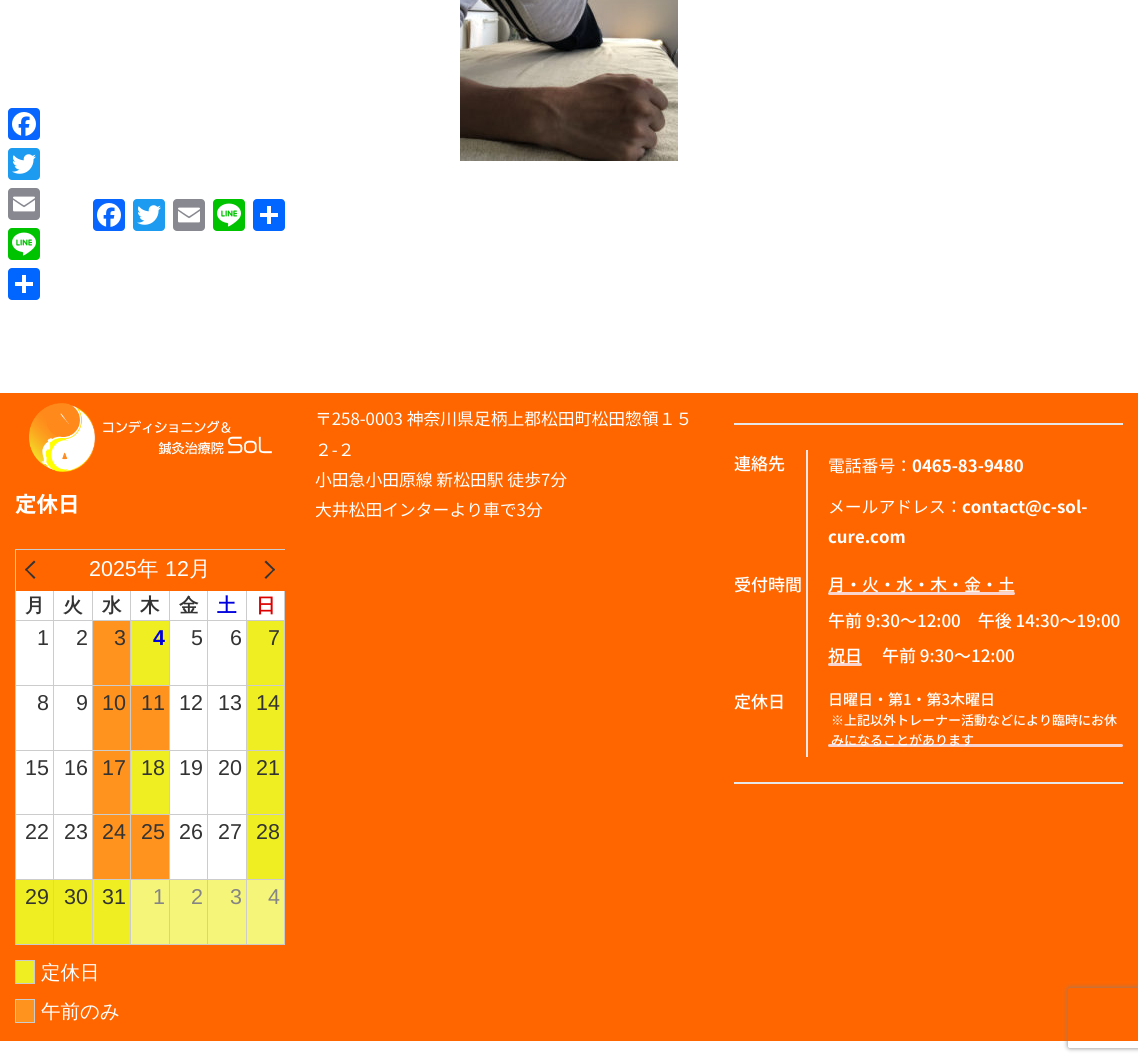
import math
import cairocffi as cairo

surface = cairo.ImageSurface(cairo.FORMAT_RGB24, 1138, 1062)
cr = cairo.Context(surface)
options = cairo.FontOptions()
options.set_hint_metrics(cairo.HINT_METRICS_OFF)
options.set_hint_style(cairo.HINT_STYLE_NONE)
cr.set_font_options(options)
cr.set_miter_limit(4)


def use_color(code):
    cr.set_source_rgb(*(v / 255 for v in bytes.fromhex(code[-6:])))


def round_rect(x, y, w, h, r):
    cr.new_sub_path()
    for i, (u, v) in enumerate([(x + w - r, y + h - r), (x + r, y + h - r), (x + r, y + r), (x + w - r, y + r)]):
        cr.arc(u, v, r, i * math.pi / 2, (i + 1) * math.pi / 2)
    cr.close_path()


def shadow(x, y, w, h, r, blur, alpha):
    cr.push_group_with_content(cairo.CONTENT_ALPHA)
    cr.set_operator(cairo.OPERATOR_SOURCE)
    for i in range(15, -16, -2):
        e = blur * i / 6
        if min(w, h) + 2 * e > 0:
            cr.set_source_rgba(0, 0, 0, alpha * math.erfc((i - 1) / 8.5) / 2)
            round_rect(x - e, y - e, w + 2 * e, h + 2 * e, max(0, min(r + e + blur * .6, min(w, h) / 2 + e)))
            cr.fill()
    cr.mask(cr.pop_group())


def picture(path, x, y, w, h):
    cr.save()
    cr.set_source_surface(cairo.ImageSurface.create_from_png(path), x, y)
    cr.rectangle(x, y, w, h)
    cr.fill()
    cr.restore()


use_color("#ffffff")
cr.paint()
use_color("#0866ff")
round_rect(8, 108, 32, 32, 4)
cr.fill()
picture("img1.png", 12, 112, 24, 24)
use_color("#1d9bf0")
round_rect(8, 148, 32, 32, 4)
cr.fill()
picture("img2.png", 12, 154, 24, 20)
use_color("#888990")
round_rect(8, 188, 32, 32, 4)
cr.fill()
picture("img3.png", 13, 196, 22, 16)
use_color("#00c300")
round_rect(8, 228, 32, 32, 4)
cr.fill()
picture("img4.png", 12, 232, 24, 24)
use_color("#0166ff")
round_rect(8, 268, 32, 32, 4)
cr.fill()
use_color("#ffffff")
cr.rectangle(22, 275, 4, 18)
cr.fill()
cr.rectangle(15, 282, 18, 4)
cr.fill()
picture("img5.png", 460, 0, 218, 161)
use_color("#0866ff")
round_rect(93, 199, 32, 32, 4)
cr.fill()
picture("img1.png", 97, 203, 24, 24)
use_color("#1d9bf0")
round_rect(133, 199, 32, 32, 4)
cr.fill()
picture("img2.png", 137, 205, 24, 20)
use_color("#888990")
round_rect(173, 199, 32, 32, 4)
cr.fill()
picture("img3.png", 178, 207, 22, 16)
use_color("#00c300")
round_rect(213, 199, 32, 32, 4)
cr.fill()
picture("img4.png", 217, 203, 24, 24)
use_color("#0166ff")
round_rect(253, 199, 32, 32, 4)
cr.fill()
use_color("#ffffff")
cr.rectangle(267, 206, 4, 18)
cr.fill()
cr.rectangle(260, 213, 18, 4)
cr.fill()
use_color("#ff6600")
cr.rectangle(0, 393, 1138, 648)
cr.fill()
picture("img6.png", 29, 403, 243, 69)
cr.select_font_face("Noto Sans JP", cairo.FONT_SLANT_NORMAL, cairo.FONT_WEIGHT_BOLD)
cr.set_font_size(21.5)
use_color("#ffffff")
cr.move_to(15, 512)
cr.show_text("定休日")
use_color("#cccccc")
cr.rectangle(15, 549, 270, 1)
cr.fill()
cr.rectangle(15, 944, 270, 1)
cr.fill()
cr.rectangle(15, 549, 1, 396)
cr.fill()
use_color("#333333")
cr.new_path()
cr.move_to(26, 568.5)
cr.line_to(35.5, 577.5)
cr.line_to(34, 579)
cr.line_to(25, 569.5)
cr.close_path()
cr.fill()
cr.new_path()
cr.move_to(34, 560.5)
cr.line_to(35.5, 562)
cr.line_to(26, 571)
cr.line_to(25, 569.5)
cr.close_path()
cr.fill()
cr.select_font_face("Liberation Sans")
use_color("#ffffff")
cr.move_to(89, 576)
cr.show_text("2025")
cr.select_font_face("WenQuanYi Zen Hei Medium")
cr.move_to(137, 576)
cr.show_text("年")
cr.select_font_face("Liberation Sans")
cr.move_to(165, 576)
cr.show_text("12")
cr.select_font_face("WenQuanYi Zen Hei Medium")
cr.move_to(189, 576)
cr.show_text("月")
use_color("#333333")
cr.new_path()
cr.move_to(266, 560.5)
cr.line_to(275, 569.5)
cr.line_to(274, 571)
cr.line_to(264.5, 562)
cr.close_path()
cr.fill()
cr.new_path()
cr.move_to(274, 568.5)
cr.line_to(275, 569.5)
cr.line_to(266, 579)
cr.line_to(264.5, 577.5)
cr.close_path()
cr.fill()
use_color("#ffffff")
cr.rectangle(16, 591, 37, 29)
cr.fill()
use_color("#cccccc")
cr.rectangle(53, 591, 1, 29)
cr.fill()
cr.select_font_face("WenQuanYi Zen Hei", cairo.FONT_SLANT_NORMAL, cairo.FONT_WEIGHT_BOLD)
cr.set_font_size(19.5)
use_color("#333333")
cr.move_to(25, 612)
cr.show_text("月")
use_color("#ffffff")
cr.rectangle(54, 591, 38, 29)
cr.fill()
use_color("#cccccc")
cr.rectangle(92, 591, 1, 29)
cr.fill()
use_color("#333333")
cr.move_to(63, 612)
cr.show_text("火")
use_color("#ffffff")
cr.rectangle(93, 591, 37, 29)
cr.fill()
use_color("#cccccc")
cr.rectangle(130, 591, 1, 29)
cr.fill()
use_color("#333333")
cr.move_to(102, 612)
cr.show_text("水")
use_color("#ffffff")
cr.rectangle(131, 591, 38, 29)
cr.fill()
use_color("#cccccc")
cr.rectangle(169, 591, 1, 29)
cr.fill()
use_color("#333333")
cr.move_to(140, 612)
cr.show_text("木")
use_color("#ffffff")
cr.rectangle(170, 591, 37, 29)
cr.fill()
use_color("#cccccc")
cr.rectangle(207, 591, 1, 29)
cr.fill()
use_color("#333333")
cr.move_to(179, 612)
cr.show_text("金")
use_color("#ffffff")
cr.rectangle(208, 591, 38, 29)
cr.fill()
use_color("#cccccc")
cr.rectangle(246, 591, 1, 29)
cr.fill()
use_color("#0000dd")
cr.move_to(217, 612)
cr.show_text("土")
use_color("#ffffff")
cr.rectangle(247, 591, 37, 29)
cr.fill()
use_color("#cccccc")
cr.rectangle(284, 591, 1, 29)
cr.fill()
use_color("#dd0000")
cr.move_to(256, 612)
cr.show_text("日")
use_color("#ffffff")
cr.rectangle(16, 621, 230, 64)
cr.fill()
use_color("#cccccc")
cr.rectangle(16, 620, 269, 1)
cr.fill()
cr.rectangle(53, 620, 1, 65)
cr.fill()
cr.select_font_face("Liberation Sans")
cr.set_font_size(21.5)
use_color("#333333")
cr.move_to(37, 645)
cr.show_text("1")
use_color("#cccccc")
cr.rectangle(92, 620, 1, 65)
cr.fill()
use_color("#333333")
cr.move_to(76, 645)
cr.show_text("2")
use_color("#cccccc")
cr.rectangle(130, 620, 1, 65)
cr.fill()
use_color("#ff931e")
cr.rectangle(93, 621, 37, 64)
cr.fill()
use_color("#333333")
cr.move_to(114, 645)
cr.show_text("3")
use_color("#cccccc")
cr.rectangle(169, 620, 1, 65)
cr.fill()
use_color("#eeee22")
cr.rectangle(131, 621, 38, 64)
cr.fill()
cr.select_font_face("Liberation Sans", cairo.FONT_SLANT_NORMAL, cairo.FONT_WEIGHT_BOLD)
use_color("#0000dd")
cr.move_to(153, 645)
cr.show_text("4")
use_color("#cccccc")
cr.rectangle(207, 620, 1, 65)
cr.fill()
cr.select_font_face("Liberation Sans")
use_color("#333333")
cr.move_to(191, 645)
cr.show_text("5")
use_color("#cccccc")
cr.rectangle(246, 620, 1, 65)
cr.fill()
use_color("#333333")
cr.move_to(230, 645)
cr.show_text("6")
use_color("#cccccc")
cr.rectangle(284, 620, 1, 65)
cr.fill()
use_color("#eeee22")
cr.rectangle(247, 621, 37, 64)
cr.fill()
use_color("#333333")
cr.move_to(268, 645)
cr.show_text("7")
use_color("#ffffff")
cr.rectangle(16, 686, 230, 64)
cr.fill()
use_color("#cccccc")
cr.rectangle(16, 685, 269, 1)
cr.fill()
cr.rectangle(53, 685, 1, 65)
cr.fill()
use_color("#333333")
cr.move_to(37, 710)
cr.show_text("8")
use_color("#cccccc")
cr.rectangle(92, 685, 1, 65)
cr.fill()
use_color("#333333")
cr.move_to(76, 710)
cr.show_text("9")
use_color("#cccccc")
cr.rectangle(130, 685, 1, 65)
cr.fill()
use_color("#ff931e")
cr.rectangle(93, 686, 37, 64)
cr.fill()
use_color("#333333")
cr.move_to(102, 710)
cr.show_text("10")
use_color("#cccccc")
cr.rectangle(169, 685, 1, 65)
cr.fill()
use_color("#ff931e")
cr.rectangle(131, 686, 38, 64)
cr.fill()
use_color("#333333")
cr.move_to(141, 710)
cr.show_text("11")
use_color("#cccccc")
cr.rectangle(207, 685, 1, 65)
cr.fill()
use_color("#333333")
cr.move_to(179, 710)
cr.show_text("12")
use_color("#cccccc")
cr.rectangle(246, 685, 1, 65)
cr.fill()
use_color("#333333")
cr.move_to(218, 710)
cr.show_text("13")
use_color("#cccccc")
cr.rectangle(284, 685, 1, 65)
cr.fill()
use_color("#eeee22")
cr.rectangle(247, 686, 37, 64)
cr.fill()
use_color("#333333")
cr.move_to(256, 710)
cr.show_text("14")
use_color("#ffffff")
cr.rectangle(16, 751, 230, 63)
cr.fill()
use_color("#cccccc")
cr.rectangle(16, 750, 269, 1)
cr.fill()
cr.rectangle(53, 750, 1, 64)
cr.fill()
use_color("#333333")
cr.move_to(25, 775)
cr.show_text("15")
use_color("#cccccc")
cr.rectangle(92, 750, 1, 64)
cr.fill()
use_color("#333333")
cr.move_to(64, 775)
cr.show_text("16")
use_color("#cccccc")
cr.rectangle(130, 750, 1, 64)
cr.fill()
use_color("#ff931e")
cr.rectangle(93, 751, 37, 63)
cr.fill()
use_color("#333333")
cr.move_to(102, 775)
cr.show_text("17")
use_color("#cccccc")
cr.rectangle(169, 750, 1, 64)
cr.fill()
use_color("#eeee22")
cr.rectangle(131, 751, 38, 63)
cr.fill()
use_color("#333333")
cr.move_to(141, 775)
cr.show_text("18")
use_color("#cccccc")
cr.rectangle(207, 750, 1, 64)
cr.fill()
use_color("#333333")
cr.move_to(179, 775)
cr.show_text("19")
use_color("#cccccc")
cr.rectangle(246, 750, 1, 64)
cr.fill()
use_color("#333333")
cr.move_to(218, 775)
cr.show_text("20")
use_color("#cccccc")
cr.rectangle(284, 750, 1, 64)
cr.fill()
use_color("#eeee22")
cr.rectangle(247, 751, 37, 63)
cr.fill()
use_color("#333333")
cr.move_to(256, 775)
cr.show_text("21")
use_color("#ffffff")
cr.rectangle(16, 815, 230, 64)
cr.fill()
use_color("#cccccc")
cr.rectangle(16, 814, 269, 1)
cr.fill()
cr.rectangle(53, 814, 1, 65)
cr.fill()
use_color("#333333")
cr.move_to(25, 839)
cr.show_text("22")
use_color("#cccccc")
cr.rectangle(92, 814, 1, 65)
cr.fill()
use_color("#333333")
cr.move_to(64, 839)
cr.show_text("23")
use_color("#cccccc")
cr.rectangle(130, 814, 1, 65)
cr.fill()
use_color("#ff931e")
cr.rectangle(93, 815, 37, 64)
cr.fill()
use_color("#333333")
cr.move_to(102, 839)
cr.show_text("24")
use_color("#cccccc")
cr.rectangle(169, 814, 1, 65)
cr.fill()
use_color("#ff931e")
cr.rectangle(131, 815, 38, 64)
cr.fill()
use_color("#333333")
cr.move_to(141, 839)
cr.show_text("25")
use_color("#cccccc")
cr.rectangle(207, 814, 1, 65)
cr.fill()
use_color("#333333")
cr.move_to(179, 839)
cr.show_text("26")
use_color("#cccccc")
cr.rectangle(246, 814, 1, 65)
cr.fill()
use_color("#333333")
cr.move_to(218, 839)
cr.show_text("27")
use_color("#cccccc")
cr.rectangle(284, 814, 1, 65)
cr.fill()
use_color("#eeee22")
cr.rectangle(247, 815, 37, 64)
cr.fill()
use_color("#333333")
cr.move_to(256, 839)
cr.show_text("28")
use_color("#cccccc")
cr.rectangle(16, 879, 269, 1)
cr.fill()
cr.rectangle(53, 879, 1, 65)
cr.fill()
use_color("#eeee22")
cr.rectangle(16, 880, 37, 64)
cr.fill()
use_color("#333333")
cr.move_to(25, 904)
cr.show_text("29")
use_color("#cccccc")
cr.rectangle(92, 879, 1, 65)
cr.fill()
use_color("#eeee22")
cr.rectangle(54, 880, 38, 64)
cr.fill()
use_color("#333333")
cr.move_to(64, 904)
cr.show_text("30")
use_color("#cccccc")
cr.rectangle(130, 879, 1, 65)
cr.fill()
use_color("#eeee22")
cr.rectangle(93, 880, 37, 64)
cr.fill()
use_color("#333333")
cr.move_to(102, 904)
cr.show_text("31")
use_color("#cccccc")
cr.rectangle(169, 879, 1, 65)
cr.fill()
use_color("#f5f57a")
cr.rectangle(131, 880, 38, 64)
cr.fill()
use_color("#858585")
cr.move_to(153, 904)
cr.show_text("1")
use_color("#cccccc")
cr.rectangle(207, 879, 1, 65)
cr.fill()
use_color("#f5f57a")
cr.rectangle(170, 880, 37, 64)
cr.fill()
use_color("#858585")
cr.move_to(191, 904)
cr.show_text("2")
use_color("#cccccc")
cr.rectangle(246, 879, 1, 65)
cr.fill()
use_color("#f5f57a")
cr.rectangle(208, 880, 38, 64)
cr.fill()
use_color("#858585")
cr.move_to(230, 904)
cr.show_text("3")
use_color("#cccccc")
cr.rectangle(284, 879, 1, 65)
cr.fill()
use_color("#f5f57a")
cr.rectangle(247, 880, 37, 64)
cr.fill()
use_color("#858585")
cr.move_to(268, 904)
cr.show_text("4")
use_color("#eeee22")
cr.rectangle(15.5, 960.5, 19, 23)
cr.fill_preserve()
use_color("#cccccc")
cr.set_line_width(1)
cr.stroke()
cr.select_font_face("WenQuanYi Zen Hei Medium")
cr.set_font_size(19.5)
use_color("#ffffff")
cr.move_to(41, 979)
cr.show_text("定休日")
use_color("#ff931e")
cr.rectangle(15.5, 999.5, 19, 23)
cr.fill_preserve()
use_color("#cccccc")
cr.stroke()
use_color("#ffffff")
cr.move_to(41, 1018)
cr.show_text("午前のみ")
cr.select_font_face("Noto Sans JP")
cr.set_font_size(16.8)
cr.move_to(315, 425)
cr.show_text("〒258-0003 神奈川県足柄上郡松田町松田惣領１５")
cr.move_to(315, 456)
cr.show_text("２-２")
cr.move_to(315, 486)
cr.show_text("小田急小田原線 新松田駅 徒歩7分")
cr.move_to(315, 516)
cr.show_text("大井松田インターより車で3分")
use_color("#e7e7e7")
cr.rectangle(734, 423, 389, 2)
cr.fill()
cr.rectangle(734, 782, 389, 2)
cr.fill()
cr.select_font_face("Noto Sans JP Medium")
cr.set_font_size(17)
use_color("#ffffff")
cr.move_to(734, 470)
cr.show_text("連絡先")
use_color("#e7e7e7")
cr.rectangle(806, 450, 2, 307)
cr.fill()
cr.select_font_face("Noto Sans JP")
cr.set_font_size(16.8)
use_color("#ffffff")
cr.move_to(828, 472)
cr.show_text("電話番号：")
cr.select_font_face("Noto Sans JP", cairo.FONT_SLANT_NORMAL, cairo.FONT_WEIGHT_BOLD)
cr.move_to(912, 472)
cr.show_text("0465-83-9480")
cr.select_font_face("Noto Sans JP")
cr.move_to(828, 513)
cr.show_text("メールアドレス：")
cr.select_font_face("Noto Sans JP", cairo.FONT_SLANT_NORMAL, cairo.FONT_WEIGHT_BOLD)
cr.move_to(962, 513)
cr.show_text("contact@c-sol-")
cr.move_to(828, 543)
cr.show_text("cure.com")
cr.select_font_face("Noto Sans JP Medium")
cr.set_font_size(17)
cr.move_to(734, 591)
cr.show_text("受付時間")
use_color("#f9d3cd")
round_rect(828, 592, 187, 3, 1.5)
cr.fill()
use_color("#ffffff")
cr.move_to(828, 591)
cr.show_text("月・火・水・木・金・土")
cr.move_to(828, 627)
cr.show_text("午前 9:30～12:00　午後 14:30〜19:00")
use_color("#f9d3cd")
round_rect(828, 663, 34, 3, 1.5)
cr.fill()
use_color("#ffffff")
cr.move_to(828, 662)
cr.show_text("祝日")
cr.move_to(882, 662)
cr.show_text("午前 9:30～12:00")
cr.move_to(734, 708)
cr.show_text("定休日")
cr.set_font_size(15)
cr.move_to(828, 705)
cr.show_text("日曜日・第1・第3木曜日")
cr.set_font_size(13)
cr.move_to(831, 725)
cr.show_text("※上記以外トレーナー活動などにより臨時にお休")
use_color("#f9d3cd")
round_rect(828, 744, 295, 3, 1.5)
cr.fill()
use_color("#ffffff")
cr.move_to(831, 745)
cr.show_text("みになることがあります")
cr.save()
cr.set_fill_rule(cairo.FILL_RULE_EVEN_ODD)
cr.new_path()
cr.move_to(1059, 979)
cr.line_to(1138, 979)
cr.line_to(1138, 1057)
cr.line_to(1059, 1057)
cr.close_path()
cr.move_to(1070, 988)
cr.line_to(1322, 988)
cr.curve_to(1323, 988, 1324, 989, 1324, 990)
cr.line_to(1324, 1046)
cr.curve_to(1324, 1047, 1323, 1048, 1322, 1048)
cr.line_to(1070, 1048)
cr.curve_to(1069, 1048, 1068, 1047, 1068, 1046)
cr.line_to(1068, 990)
cr.curve_to(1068, 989, 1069, 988, 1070, 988)
cr.close_path()
cr.clip()
use_color("#808080")
shadow(1068, 988, 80, 60, 2, 2.5, 1)
cr.restore()
surface.write_to_png("result.png")
